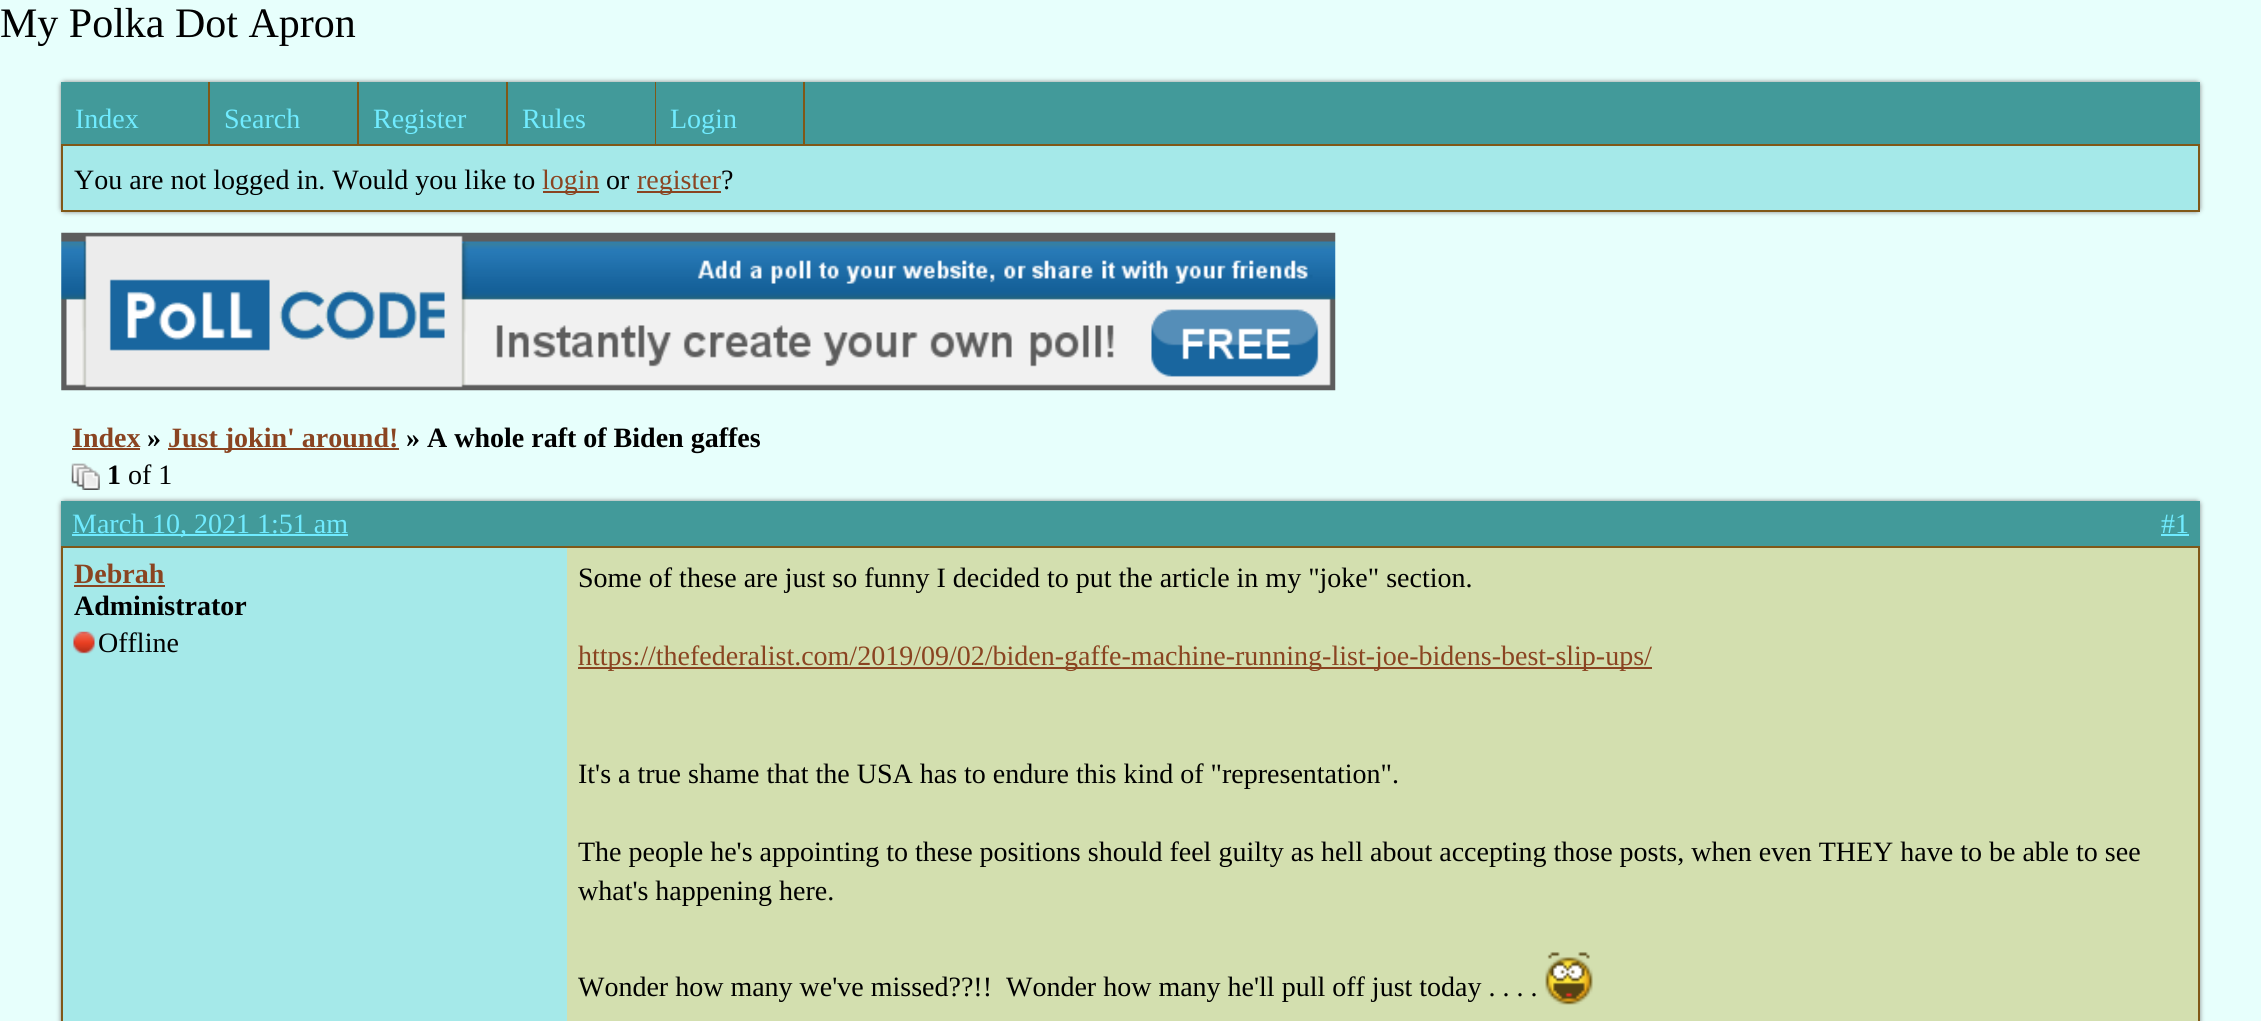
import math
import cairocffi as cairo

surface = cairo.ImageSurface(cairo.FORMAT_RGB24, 2261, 1021)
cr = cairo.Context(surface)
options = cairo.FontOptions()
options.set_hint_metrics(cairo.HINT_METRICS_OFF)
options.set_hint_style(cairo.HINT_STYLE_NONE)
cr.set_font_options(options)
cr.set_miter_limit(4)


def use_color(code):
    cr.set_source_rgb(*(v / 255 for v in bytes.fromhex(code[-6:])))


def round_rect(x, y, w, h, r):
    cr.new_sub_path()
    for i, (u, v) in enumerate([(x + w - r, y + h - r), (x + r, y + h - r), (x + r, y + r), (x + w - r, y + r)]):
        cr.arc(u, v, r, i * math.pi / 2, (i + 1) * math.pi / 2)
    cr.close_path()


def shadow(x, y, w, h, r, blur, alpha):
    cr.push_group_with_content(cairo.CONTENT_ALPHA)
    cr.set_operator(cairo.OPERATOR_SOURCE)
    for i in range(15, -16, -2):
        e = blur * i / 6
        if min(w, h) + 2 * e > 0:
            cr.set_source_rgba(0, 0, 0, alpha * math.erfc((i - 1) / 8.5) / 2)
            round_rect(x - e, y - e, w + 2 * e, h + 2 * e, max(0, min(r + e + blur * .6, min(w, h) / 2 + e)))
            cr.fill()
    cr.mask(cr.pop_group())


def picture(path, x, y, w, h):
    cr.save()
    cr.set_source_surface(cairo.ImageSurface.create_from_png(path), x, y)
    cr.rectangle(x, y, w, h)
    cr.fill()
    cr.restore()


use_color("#e7fffc")
cr.paint()
cr.select_font_face("Liberation Serif")
cr.set_font_size(42)
use_color("#000000")
cr.move_to(0, 37)
cr.show_text("My Polka Dot Apron")
use_color("#888888")
shadow(61, 82, 2139, 130, 4, 2.5, 1)
use_color("#a5e9e9")
cr.rectangle(63, 146, 2135, 64)
cr.fill()
cr.rectangle(62, 83, 2137, 128)
use_color("#805818")
cr.stroke()
use_color("#429a9a")
cr.rectangle(61, 82, 2139, 62)
cr.fill()
use_color("#805818")
cr.rectangle(61, 144, 2139, 2)
cr.fill()
cr.rectangle(208, 82, 2, 62)
cr.fill()
cr.set_font_size(28)
use_color("#70ebff")
cr.move_to(75, 128)
cr.show_text("Index")
use_color("#805818")
cr.rectangle(357, 82, 2, 62)
cr.fill()
use_color("#70ebff")
cr.move_to(224, 128)
cr.show_text("Search")
use_color("#805818")
cr.rectangle(506, 82, 2, 62)
cr.fill()
use_color("#70ebff")
cr.move_to(373, 128)
cr.show_text("Register")
use_color("#805818")
cr.rectangle(655, 82, 1, 62)
cr.fill()
use_color("#70ebff")
cr.move_to(522, 128)
cr.show_text("Rules")
use_color("#805818")
cr.rectangle(803, 82, 2, 62)
cr.fill()
use_color("#70ebff")
cr.move_to(670, 128)
cr.show_text("Login")
use_color("#000000")
cr.move_to(74, 189)
cr.show_text("You are not logged in. Would you like to")
use_color("#8a4421")
cr.rectangle(543, 191, 56, 2)
cr.fill()
cr.move_to(542, 189)
cr.show_text("login")
use_color("#000000")
cr.move_to(606, 189)
cr.show_text("or")
use_color("#8a4421")
cr.rectangle(637, 191, 84, 2)
cr.fill()
cr.move_to(637, 189)
cr.show_text("register")
use_color("#000000")
cr.move_to(721, 189)
cr.show_text("?")
picture("img1.png", 61, 232, 1275, 159)
cr.select_font_face("Liberation Serif", cairo.FONT_SLANT_NORMAL, cairo.FONT_WEIGHT_BOLD)
use_color("#8a4421")
cr.move_to(72, 447)
cr.show_text("Index")
cr.rectangle(72, 448, 68, 2)
cr.fill()
use_color("#000000")
cr.move_to(147, 447)
cr.show_text("»")
use_color("#8a4421")
cr.rectangle(168, 448, 231, 2)
cr.fill()
cr.move_to(168, 447)
cr.show_text("Just jokin' around!")
use_color("#000000")
cr.move_to(406, 447)
cr.show_text("» A whole raft of Biden gaffes")
picture("img2.png", 71, 463, 29, 27)
cr.move_to(107, 484)
cr.show_text("1")
cr.select_font_face("Liberation Serif")
cr.move_to(128, 484)
cr.show_text("of 1")
use_color("#888888")
shadow(61, 501, 2139, 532, 4, 2.5, 1)
use_color("#429a9a")
cr.rectangle(61, 501, 2139, 45)
cr.fill()
use_color("#70ebff")
cr.rectangle(72, 534, 276, 2)
cr.fill()
cr.move_to(72, 533)
cr.show_text("March 10, 2021 1:51 am")
cr.move_to(2161, 533)
cr.show_text("#1")
cr.rectangle(2161, 534, 28, 2)
cr.fill()
use_color("#d3dfaf")
cr.rectangle(567, 548, 1631, 473)
cr.fill()
cr.rectangle(62, 547, 2137, 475)
use_color("#805818")
cr.stroke()
use_color("#a5e9e9")
cr.rectangle(63, 548, 504, 473)
cr.fill()
cr.select_font_face("Liberation Serif", cairo.FONT_SLANT_NORMAL, cairo.FONT_WEIGHT_BOLD)
use_color("#8a4421")
cr.move_to(74, 583)
cr.show_text("Debrah")
cr.rectangle(74, 585, 91, 2)
cr.fill()
use_color("#000000")
cr.move_to(74, 615)
cr.show_text("Administrator")
picture("img3.png", 73, 631, 22, 23)
cr.select_font_face("Liberation Serif")
cr.move_to(98, 652)
cr.show_text("Offline")
cr.move_to(578, 587)
cr.show_text("Some of these are just so funny I decided to put the article in my \"joke\" section.")
use_color("#8a4421")
cr.rectangle(578, 667, 1074, 2)
cr.fill()
cr.move_to(578, 665)
cr.show_text("https://thefederalist.com/2019/09/02/biden-gaffe-machine-running-list-joe-bidens-best-slip-ups/")
use_color("#000000")
cr.move_to(578, 783)
cr.show_text("It's a true shame that the USA has to endure this kind of \"representation\".")
cr.move_to(578, 861)
cr.show_text("The people he's appointing to these positions should feel guilty as hell about accepting those posts, when even THEY have to be able to see")
cr.move_to(578, 900)
cr.show_text("what's happening here.")
cr.move_to(578, 996)
cr.show_text("Wonder how many we've missed??!!  Wonder how many he'll pull off just today . . . .")
picture("img4.png", 1545, 952, 48, 53)
surface.write_to_png("result.png")
